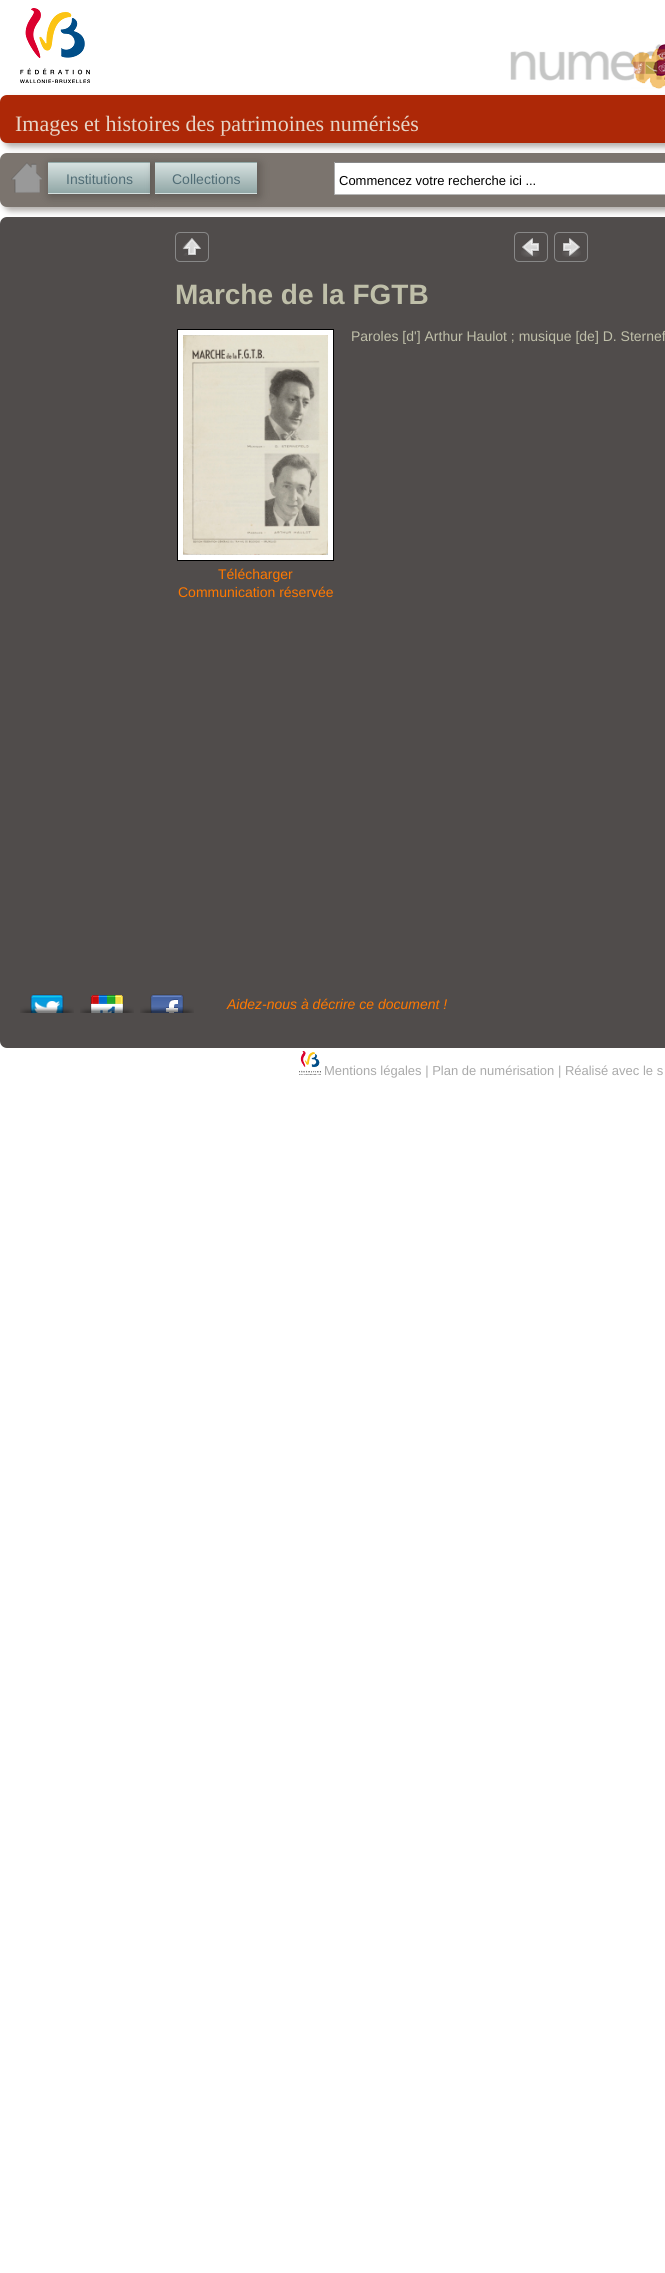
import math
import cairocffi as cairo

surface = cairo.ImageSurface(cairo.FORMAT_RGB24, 665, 2273)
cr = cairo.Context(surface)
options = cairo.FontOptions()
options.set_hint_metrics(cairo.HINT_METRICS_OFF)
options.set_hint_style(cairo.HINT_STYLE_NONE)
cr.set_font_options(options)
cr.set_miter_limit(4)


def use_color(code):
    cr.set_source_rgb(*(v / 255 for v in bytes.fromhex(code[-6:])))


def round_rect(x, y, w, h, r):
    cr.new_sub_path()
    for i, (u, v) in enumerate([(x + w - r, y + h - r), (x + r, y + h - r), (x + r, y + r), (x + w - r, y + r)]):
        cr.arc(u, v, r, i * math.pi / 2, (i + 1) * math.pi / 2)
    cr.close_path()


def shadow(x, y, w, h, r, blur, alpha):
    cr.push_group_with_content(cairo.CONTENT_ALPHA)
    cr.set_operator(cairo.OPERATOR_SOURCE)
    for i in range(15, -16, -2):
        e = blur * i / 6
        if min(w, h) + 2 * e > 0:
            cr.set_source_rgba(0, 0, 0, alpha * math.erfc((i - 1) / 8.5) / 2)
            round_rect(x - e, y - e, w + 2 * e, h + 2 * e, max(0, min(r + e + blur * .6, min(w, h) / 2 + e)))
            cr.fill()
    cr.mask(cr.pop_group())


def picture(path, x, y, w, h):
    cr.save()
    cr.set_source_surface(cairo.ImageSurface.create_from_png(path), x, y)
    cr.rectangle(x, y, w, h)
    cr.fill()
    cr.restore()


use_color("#ffffff")
cr.paint()
picture("img1.png", 510, 44, 155, 37)
picture("img2.png", 20, 8, 70, 75)
picture("img3.png", 631, 44, 34, 45)
use_color("#b2aeab")
shadow(4, 99, 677, 48, 7, 3, 1)
use_color("#ad2807")
round_rect(0, 95, 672, 48, 7)
cr.fill()
cr.select_font_face("Liberation Serif")
cr.set_font_size(22)
use_color("#e7d5c7")
cr.move_to(15, 131)
cr.show_text("Images et histoires des patrimoines numérisés")
use_color("#504c4b")
round_rect(0, 217, 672, 831, 7)
cr.fill()
use_color("#b2aeab")
shadow(4, 157, 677, 54, 7, 3, 1)
use_color("#7b746e")
round_rect(0, 153, 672, 54, 7)
cr.fill()
picture("img4.png", 11, 162, 31, 31)
use_color("#59544f")
shadow(50, 164, 102, 32, 0, 5, 1)
gradient = cairo.LinearGradient(99, 133, 99, 163)
gradient.add_color_stop_rgba(0, 0.839, 0.882, 0.878, 1)
gradient.add_color_stop_rgba(1, 0.569, 0.655, 0.651, 1)
cr.set_source(gradient)
cr.rectangle(48, 162, 102, 1)
cr.fill()
gradient = cairo.LinearGradient(99, 163, 99, 193)
gradient.add_color_stop_rgba(0, 0.839, 0.882, 0.878, 1)
gradient.add_color_stop_rgba(1, 0.569, 0.655, 0.651, 1)
cr.set_source(gradient)
cr.rectangle(48, 163, 102, 30)
cr.fill()
gradient = cairo.LinearGradient(99, 193, 99, 223)
gradient.add_color_stop_rgba(0, 0.839, 0.882, 0.878, 1)
gradient.add_color_stop_rgba(1, 0.569, 0.655, 0.651, 1)
cr.set_source(gradient)
cr.rectangle(48, 193, 102, 1)
cr.fill()
cr.select_font_face("Liberation Sans")
cr.set_font_size(14)
use_color("#516d76")
cr.move_to(66, 184)
cr.show_text("Institutions")
use_color("#59544f")
shadow(157, 164, 102, 32, 0, 5, 1)
gradient = cairo.LinearGradient(206, 133, 206, 163)
gradient.add_color_stop_rgba(0, 0.839, 0.882, 0.878, 1)
gradient.add_color_stop_rgba(1, 0.569, 0.655, 0.651, 1)
cr.set_source(gradient)
cr.rectangle(155, 162, 102, 1)
cr.fill()
gradient = cairo.LinearGradient(206, 163, 206, 193)
gradient.add_color_stop_rgba(0, 0.839, 0.882, 0.878, 1)
gradient.add_color_stop_rgba(1, 0.569, 0.655, 0.651, 1)
cr.set_source(gradient)
cr.rectangle(155, 163, 102, 30)
cr.fill()
gradient = cairo.LinearGradient(206, 193, 206, 223)
gradient.add_color_stop_rgba(0, 0.839, 0.882, 0.878, 1)
gradient.add_color_stop_rgba(1, 0.569, 0.655, 0.651, 1)
cr.set_source(gradient)
cr.rectangle(155, 193, 102, 1)
cr.fill()
use_color("#516d76")
cr.move_to(172, 184)
cr.show_text("Collections")
use_color("#ffffff")
cr.rectangle(335, 163, 330, 31)
cr.fill()
use_color("#888888")
cr.rectangle(334, 162, 331, 1)
cr.fill()
use_color("#b6b6b6")
cr.rectangle(334, 194, 331, 1)
cr.fill()
use_color("#aaaaaa")
cr.rectangle(334, 162, 1, 33)
cr.fill()
cr.set_font_size(13)
use_color("#000000")
cr.move_to(339, 185)
cr.show_text("Commencez votre recherche ici ...")
picture("img5.png", 182, 238, 19, 18)
round_rect(175.5, 232.5, 33, 29, 4.5)
use_color("#888888")
cr.set_line_width(1)
cr.stroke()
picture("img6.png", 521, 238, 19, 19)
round_rect(514.5, 232.5, 33, 29, 4.5)
cr.stroke()
picture("img7.png", 562, 238, 19, 19)
round_rect(554.5, 232.5, 33, 29, 4.5)
cr.stroke()
cr.select_font_face("Liberation Sans", cairo.FONT_SLANT_NORMAL, cairo.FONT_WEIGHT_BOLD)
cr.set_font_size(28)
use_color("#bfbfa9")
cr.move_to(175, 304)
cr.show_text("Marche de la FGTB")
cr.select_font_face("Liberation Sans")
cr.set_font_size(14)
cr.move_to(351, 341)
cr.show_text("Paroles [d'] Arthur Haulot ; musique [de] D. Sternef")
use_color("#ffffff")
cr.rectangle(177.5, 329.5, 156, 231)
cr.fill_preserve()
use_color("#000000")
cr.stroke()
picture("img8.png", 183, 335, 145, 220)
use_color("#ff7800")
cr.move_to(218, 579)
cr.show_text("Télécharger")
cr.move_to(178, 597)
cr.show_text("Communication réservée")
picture("img9.png", 20, 994, 54, 19)
picture("img10.png", 80, 995, 54, 18)
picture("img11.png", 140, 994, 54, 19)
cr.select_font_face("Liberation Sans", cairo.FONT_SLANT_ITALIC)
cr.move_to(227, 1009)
cr.show_text("Aidez-nous à décrire ce document !")
picture("img12.png", 299, 1051, 22, 24)
cr.select_font_face("Liberation Sans")
cr.set_font_size(13)
use_color("#aaaaaa")
cr.move_to(324, 1075)
cr.show_text("Mentions légales | Plan de numérisation | Réalisé avec le s")
surface.write_to_png("result.png")
